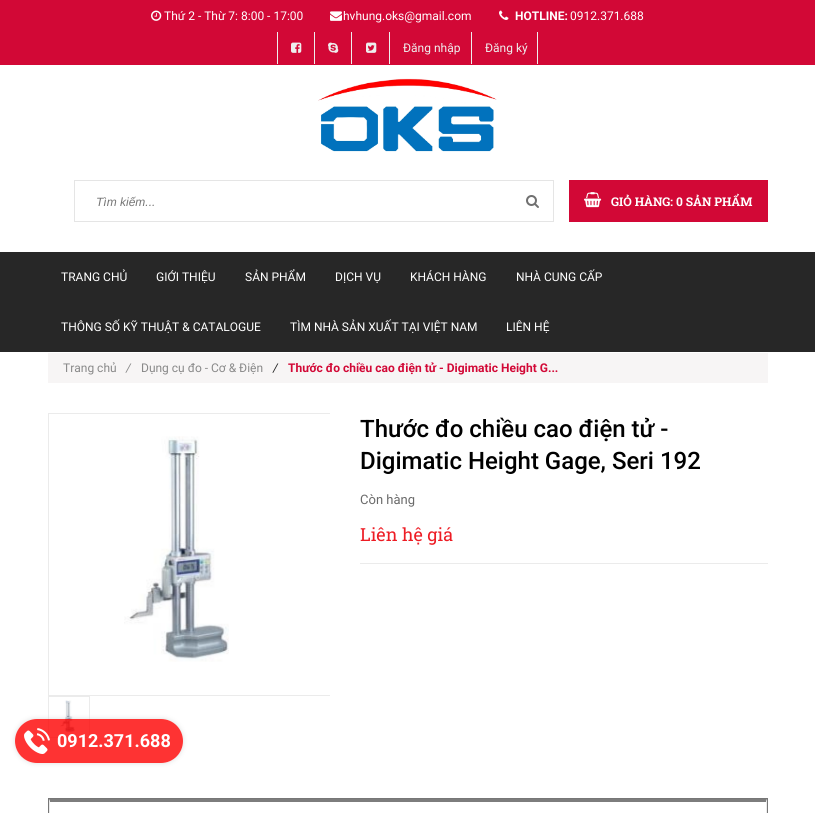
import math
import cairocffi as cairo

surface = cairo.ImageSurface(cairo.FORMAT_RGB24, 815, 813)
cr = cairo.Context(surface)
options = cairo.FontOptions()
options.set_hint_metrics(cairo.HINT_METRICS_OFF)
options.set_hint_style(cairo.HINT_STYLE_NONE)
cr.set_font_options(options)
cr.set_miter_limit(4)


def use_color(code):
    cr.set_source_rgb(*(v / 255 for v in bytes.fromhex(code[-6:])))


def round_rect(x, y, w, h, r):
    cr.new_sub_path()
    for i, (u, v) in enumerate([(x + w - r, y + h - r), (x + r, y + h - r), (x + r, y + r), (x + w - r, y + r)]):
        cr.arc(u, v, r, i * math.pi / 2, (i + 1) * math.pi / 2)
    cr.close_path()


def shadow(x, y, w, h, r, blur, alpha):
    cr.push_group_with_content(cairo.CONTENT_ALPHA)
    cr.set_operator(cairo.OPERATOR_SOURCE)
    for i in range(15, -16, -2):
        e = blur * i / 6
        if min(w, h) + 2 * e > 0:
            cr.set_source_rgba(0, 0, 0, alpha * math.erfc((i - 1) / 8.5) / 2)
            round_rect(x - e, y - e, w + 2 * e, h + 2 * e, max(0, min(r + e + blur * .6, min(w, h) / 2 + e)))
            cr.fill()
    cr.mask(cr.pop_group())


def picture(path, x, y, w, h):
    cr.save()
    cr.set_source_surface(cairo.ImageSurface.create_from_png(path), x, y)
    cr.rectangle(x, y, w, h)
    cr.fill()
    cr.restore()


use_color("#ffffff")
cr.paint()
use_color("#d20836")
cr.rectangle(0, 0, 815, 65)
cr.fill()
picture("img1.png", 151, 10, 11, 11)
cr.select_font_face("Roboto")
cr.set_font_size(12)
use_color("#ffffff")
cr.move_to(164, 20)
cr.show_text("Thứ 2 - Thừ 7: 8:00 - 17:00")
picture("img2.png", 330, 11, 12, 10)
cr.move_to(343, 20)
cr.show_text("hvhung.oks@gmail.com")
picture("img3.png", 499, 10, 10, 10)
cr.select_font_face("Roboto", cairo.FONT_SLANT_NORMAL, cairo.FONT_WEIGHT_BOLD)
cr.move_to(515, 20)
cr.show_text("HOTLINE:")
cr.select_font_face("Roboto")
cr.move_to(570, 20)
cr.show_text("0912.371.688")
use_color("#eeeeee")
cr.rectangle(314, 32, 1, 32)
cr.fill()
cr.rectangle(277, 32, 1, 32)
cr.fill()
picture("img4.png", 291, 42, 11, 11)
cr.rectangle(351, 32, 1, 32)
cr.fill()
picture("img5.png", 328, 42, 11, 11)
cr.rectangle(389, 32, 1, 32)
cr.fill()
picture("img6.png", 366, 42, 11, 11)
cr.rectangle(471, 32, 1, 32)
cr.fill()
cr.move_to(403, 52)
cr.show_text("Đăng nhập")
cr.rectangle(537, 32, 1, 32)
cr.fill()
cr.move_to(485, 52)
cr.show_text("Đăng ký")
picture("img7.png", 318, 78, 179, 74)
cr.rectangle(74.5, 180.5, 479, 41)
use_color("#e5e5e5")
cr.set_line_width(1)
cr.stroke()
cr.select_font_face("Liberation Sans", cairo.FONT_SLANT_ITALIC)
use_color("#757575")
cr.move_to(96, 206)
cr.show_text("Tìm kiếm...")
picture("img8.png", 526, 195, 13, 13)
use_color("#d20836")
cr.rectangle(569, 180, 199, 42)
cr.fill()
picture("img9.png", 584, 192, 18, 16)
cr.select_font_face("Roboto Slab", cairo.FONT_SLANT_NORMAL, cairo.FONT_WEIGHT_BOLD)
use_color("#ffffff")
cr.move_to(611, 206)
cr.show_text("GIỎ HÀNG: 0 SẢN PHẨM")
use_color("#272727")
cr.rectangle(0, 252, 815, 100)
cr.fill()
cr.select_font_face("Roboto")
use_color("#ffffff")
cr.move_to(61, 281)
cr.show_text("TRANG CHỦ")
cr.move_to(156, 281)
cr.show_text("GIỚI THIỆU")
cr.move_to(245, 281)
cr.show_text("SẢN PHẨM")
cr.move_to(335, 281)
cr.show_text("DỊCH VỤ")
cr.move_to(410, 281)
cr.show_text("KHÁCH HÀNG")
cr.move_to(516, 281)
cr.show_text("NHÀ CUNG CẤP")
cr.move_to(61, 331)
cr.show_text("THÔNG SỐ KỸ THUẬT & CATALOGUE")
cr.move_to(290, 331)
cr.show_text("TÌM NHÀ SẢN XUẤT TẠI VIỆT NAM")
cr.move_to(506, 331)
cr.show_text("LIÊN HỆ")
use_color("#f7f5f5")
cr.rectangle(48, 353, 720, 30)
cr.fill()
use_color("#898989")
cr.move_to(63, 372)
cr.show_text("Trang chủ")
cr.select_font_face("Roboto", cairo.FONT_SLANT_ITALIC)
cr.move_to(126, 372)
cr.show_text("/")
cr.select_font_face("Roboto")
cr.move_to(141, 372)
cr.show_text("Dụng cụ đo - Cơ & Điện")
cr.select_font_face("Roboto", cairo.FONT_SLANT_ITALIC)
use_color("#222222")
cr.move_to(273, 372)
cr.show_text("/")
cr.select_font_face("Roboto", cairo.FONT_SLANT_NORMAL, cairo.FONT_WEIGHT_BOLD)
use_color("#d20836")
cr.move_to(288, 372)
cr.show_text("Thước đo chiều cao điện tử - Digimatic Height G...")
cr.save()
cr.rectangle(48, 413, 282, 283)
cr.clip()
cr.rectangle(48.5, 413.5, 282, 282)
use_color("#ebebeb")
cr.stroke()
cr.restore()
picture("img10.png", 124, 436, 105, 226)
cr.rectangle(48.5, 696.5, 41, 41)
use_color("#ebebeb")
cr.stroke()
picture("img11.png", 60, 700, 15, 33)
cr.select_font_face("Roboto Medium")
cr.set_font_size(24)
use_color("#000000")
cr.move_to(360, 437)
cr.show_text("Thước đo chiều cao điện tử -")
cr.move_to(360, 469)
cr.show_text("Digimatic Height Gage, Seri 192")
cr.select_font_face("Roboto")
cr.set_font_size(13)
use_color("#6a6a6a")
cr.move_to(360, 504)
cr.show_text("Còn hàng")
cr.select_font_face("Roboto Slab")
cr.set_font_size(18)
use_color("#ed1c24")
cr.move_to(360, 541)
cr.show_text("Liên hệ giá")
use_color("#ebebeb")
cr.rectangle(360, 563, 408, 1)
cr.fill()
cr.rectangle(48.5, 798.5, 719, 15)
use_color("#777777")
cr.stroke()
use_color("#7d7d7d")
cr.new_path()
cr.move_to(49, 799)
cr.line_to(767, 799)
cr.line_to(766, 802)
cr.line_to(50, 802)
cr.close_path()
cr.fill()
use_color("#ebebeb")
cr.new_path()
cr.move_to(767, 799)
cr.line_to(767, 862)
cr.line_to(766, 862)
cr.line_to(766, 802)
cr.close_path()
cr.fill()
cr.new_path()
cr.move_to(49, 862)
cr.line_to(49, 799)
cr.line_to(50, 802)
cr.line_to(50, 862)
cr.close_path()
cr.fill()
cr.save()
cr.set_fill_rule(cairo.FILL_RULE_EVEN_ODD)
cr.new_path()
cr.move_to(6, 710)
cr.line_to(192, 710)
cr.line_to(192, 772)
cr.line_to(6, 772)
cr.close_path()
cr.move_to(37, 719)
cr.line_to(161, 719)
cr.curve_to(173, 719, 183, 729, 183, 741)
cr.curve_to(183, 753, 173, 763, 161, 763)
cr.line_to(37, 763)
cr.curve_to(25, 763, 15, 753, 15, 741)
cr.curve_to(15, 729, 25, 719, 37, 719)
cr.close_path()
cr.clip()
use_color("#dddddd")
shadow(15, 719, 168, 44, 22, 2.5, 1)
cr.restore()
cr.set_source_rgba(0.996, 0, 0, 0.8)
round_rect(15, 719, 168, 44, 22)
cr.fill()
picture("img12.png", 24, 728, 26, 26)
cr.select_font_face("Roboto", cairo.FONT_SLANT_NORMAL, cairo.FONT_WEIGHT_BOLD)
use_color("#ffffff")
cr.move_to(57, 747)
cr.show_text("0912.371.688")
surface.write_to_png("result.png")
